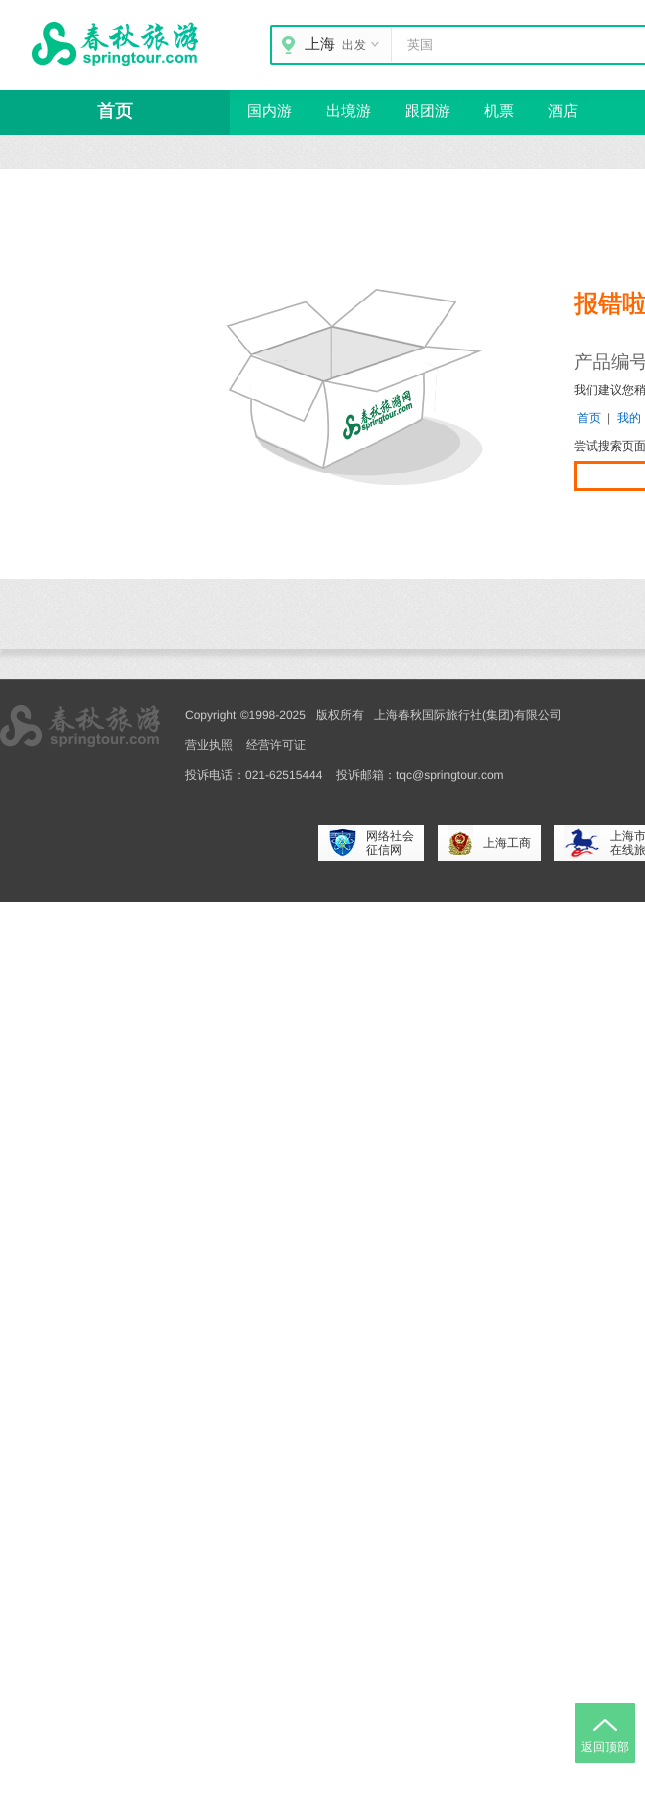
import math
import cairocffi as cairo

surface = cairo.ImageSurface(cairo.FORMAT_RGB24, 645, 1818)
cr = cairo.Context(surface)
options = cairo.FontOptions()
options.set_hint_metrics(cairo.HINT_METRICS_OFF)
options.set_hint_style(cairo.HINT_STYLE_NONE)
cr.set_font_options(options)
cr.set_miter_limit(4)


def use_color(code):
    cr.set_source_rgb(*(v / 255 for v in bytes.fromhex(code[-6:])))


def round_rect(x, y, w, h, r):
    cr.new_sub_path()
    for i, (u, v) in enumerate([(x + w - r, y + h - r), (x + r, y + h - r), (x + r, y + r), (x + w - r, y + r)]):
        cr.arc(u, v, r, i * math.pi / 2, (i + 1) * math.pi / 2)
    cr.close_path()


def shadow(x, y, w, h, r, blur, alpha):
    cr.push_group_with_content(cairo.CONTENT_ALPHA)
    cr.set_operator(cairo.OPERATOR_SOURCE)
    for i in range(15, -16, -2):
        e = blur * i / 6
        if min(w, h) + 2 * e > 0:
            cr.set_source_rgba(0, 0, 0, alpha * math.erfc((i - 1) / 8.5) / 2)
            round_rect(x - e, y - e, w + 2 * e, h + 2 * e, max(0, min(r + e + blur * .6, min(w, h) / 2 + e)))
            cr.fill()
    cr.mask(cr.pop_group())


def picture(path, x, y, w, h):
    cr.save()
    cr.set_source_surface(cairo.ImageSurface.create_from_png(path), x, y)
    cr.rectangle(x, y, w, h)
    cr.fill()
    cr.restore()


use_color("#ffffff")
cr.paint()
picture("img1.png", 32, 22, 166, 44)
round_rect(271, 26, 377, 38, 1)
use_color("#00be8f")
cr.stroke()
use_color("#fcfcfc")
round_rect(272, 27, 120, 36, 2)
cr.fill()
use_color("#e5e5e5")
cr.rectangle(391, 28, 1, 34)
cr.fill()
picture("img2.png", 282, 36, 13, 18)
cr.select_font_face("WenQuanYi Zen Hei Medium")
cr.set_font_size(15)
use_color("#333333")
cr.move_to(305, 49)
cr.show_text("上海")
cr.set_font_size(12)
use_color("#666666")
cr.move_to(342, 49)
cr.show_text("出发")
picture("img3.png", 371, 42, 8, 5)
cr.set_font_size(13)
use_color("#999999")
cr.move_to(407, 49)
cr.show_text("英国")
picture("img4.png", 230, 90, 415, 45)
use_color("#00a782")
cr.rectangle(0, 90, 230, 45)
cr.fill()
cr.select_font_face("WenQuanYi Zen Hei", cairo.FONT_SLANT_NORMAL, cairo.FONT_WEIGHT_BOLD)
cr.set_font_size(18)
use_color("#ffffff")
cr.move_to(97, 117)
cr.show_text("首页")
cr.select_font_face("WenQuanYi Zen Hei Medium")
cr.set_font_size(15)
cr.move_to(247, 116)
cr.show_text("国内游")
cr.move_to(326, 116)
cr.show_text("出境游")
cr.move_to(405, 116)
cr.show_text("跟团游")
cr.move_to(484, 116)
cr.show_text("机票")
cr.move_to(548, 116)
cr.show_text("酒店")
picture("img5.png", 0, 135, 645, 544)
use_color("#000000")
shadow(0, 159, 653, 497, 0, 2.5, 0.1)
picture("img6.png", 0, 152, 645, 497)
use_color("#ffffff")
cr.rectangle(0, 169, 645, 410)
cr.fill()
picture("img7.png", 226, 289, 257, 196)
cr.select_font_face("WenQuanYi Zen Hei", cairo.FONT_SLANT_NORMAL, cairo.FONT_WEIGHT_BOLD)
cr.set_font_size(24)
use_color("#ff6600")
cr.move_to(574, 312)
cr.show_text("报错啦")
cr.select_font_face("WenQuanYi Zen Hei Medium")
cr.set_font_size(18.5)
use_color("#666666")
cr.move_to(574, 368)
cr.show_text("产品编号")
cr.set_font_size(12)
use_color("#333333")
cr.move_to(574, 394)
cr.show_text("我们建议您稍")
use_color("#0066cc")
cr.move_to(577, 422)
cr.show_text("首页")
cr.select_font_face("Liberation Sans")
use_color("#666666")
cr.move_to(607, 422)
cr.show_text("|")
cr.select_font_face("WenQuanYi Zen Hei Medium")
use_color("#0066cc")
cr.move_to(617, 422)
cr.show_text("我的")
use_color("#333333")
cr.move_to(574, 450)
cr.show_text("尝试搜索页面")
cr.rectangle(575.5, 462.5, 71, 27)
use_color("#ff6600")
cr.set_line_width(3)
cr.stroke()
use_color("#3c3c3c")
cr.rectangle(0, 680, 645, 222)
cr.fill()
use_color("#555555")
cr.rectangle(0, 679, 645, 1)
cr.fill()
picture("img8.png", 0, 705, 160, 42)
cr.select_font_face("Liberation Sans")
use_color("#cecece")
cr.move_to(185, 719)
cr.show_text("Copyright ©1998-2025")
cr.select_font_face("WenQuanYi Zen Hei Medium")
cr.move_to(316, 719)
cr.show_text("版权所有")
cr.move_to(374, 719)
cr.show_text("上海春秋国际旅行社")
cr.select_font_face("Liberation Sans")
cr.move_to(482, 719)
cr.show_text("(")
cr.select_font_face("WenQuanYi Zen Hei Medium")
cr.move_to(486, 719)
cr.show_text("集团")
cr.select_font_face("Liberation Sans")
cr.move_to(510, 719)
cr.show_text(")")
cr.select_font_face("WenQuanYi Zen Hei Medium")
cr.move_to(514, 719)
cr.show_text("有限公司")
cr.move_to(185, 749)
cr.show_text("营业执照")
cr.move_to(246, 749)
cr.show_text("经营许可证")
cr.move_to(185, 779)
cr.show_text("投诉电话：")
cr.select_font_face("Liberation Sans")
cr.move_to(245, 779)
cr.show_text("021-62515444")
cr.select_font_face("WenQuanYi Zen Hei Medium")
cr.move_to(336, 779)
cr.show_text("投诉邮箱：")
cr.select_font_face("Liberation Sans")
cr.move_to(396, 779)
cr.show_text("tqc@springtour.com")
gradient = cairo.LinearGradient(371, 825, 371, 861)
gradient.add_color_stop_rgba(0, 1, 1, 1, 1)
gradient.add_color_stop_rgba(1, 0.973, 0.973, 0.973, 1)
cr.set_source(gradient)
cr.rectangle(318, 825, 106, 36)
cr.fill()
use_color("#f7f7f7")
cr.rectangle(328, 825, 28, 28)
cr.fill()
picture("img9.png", 328, 828, 28, 29)
cr.select_font_face("WenQuanYi Zen Hei Medium")
use_color("#333333")
cr.move_to(366, 840)
cr.show_text("网络社会")
cr.move_to(366, 854)
cr.show_text("征信网")
gradient = cairo.LinearGradient(490, 825, 490, 861)
gradient.add_color_stop_rgba(0, 1, 1, 1, 1)
gradient.add_color_stop_rgba(1, 0.973, 0.973, 0.973, 1)
cr.set_source(gradient)
cr.rectangle(438, 825, 103, 36)
cr.fill()
use_color("#f7f7f7")
cr.rectangle(448, 825, 25, 28)
cr.fill()
picture("img10.png", 448, 830, 25, 26)
use_color("#333333")
cr.move_to(483, 847)
cr.show_text("上海工商")
gradient = cairo.LinearGradient(641, 825, 641, 861)
gradient.add_color_stop_rgba(0, 1, 1, 1, 1)
gradient.add_color_stop_rgba(1, 0.973, 0.973, 0.973, 1)
cr.set_source(gradient)
cr.rectangle(554, 825, 91, 36)
cr.fill()
use_color("#f7f7f7")
cr.rectangle(564, 825, 36, 28)
cr.fill()
picture("img11.png", 564, 827, 35, 32)
use_color("#333333")
cr.move_to(610, 840)
cr.show_text("上海市")
cr.move_to(610, 854)
cr.show_text("在线旅")
use_color("#5cd18b")
round_rect(575, 1703, 60, 60, 1)
cr.fill()
picture("img12.png", 593, 1719, 24, 12)
use_color("#ffffff")
cr.move_to(581, 1751)
cr.show_text("返回顶部")
surface.write_to_png("result.png")
